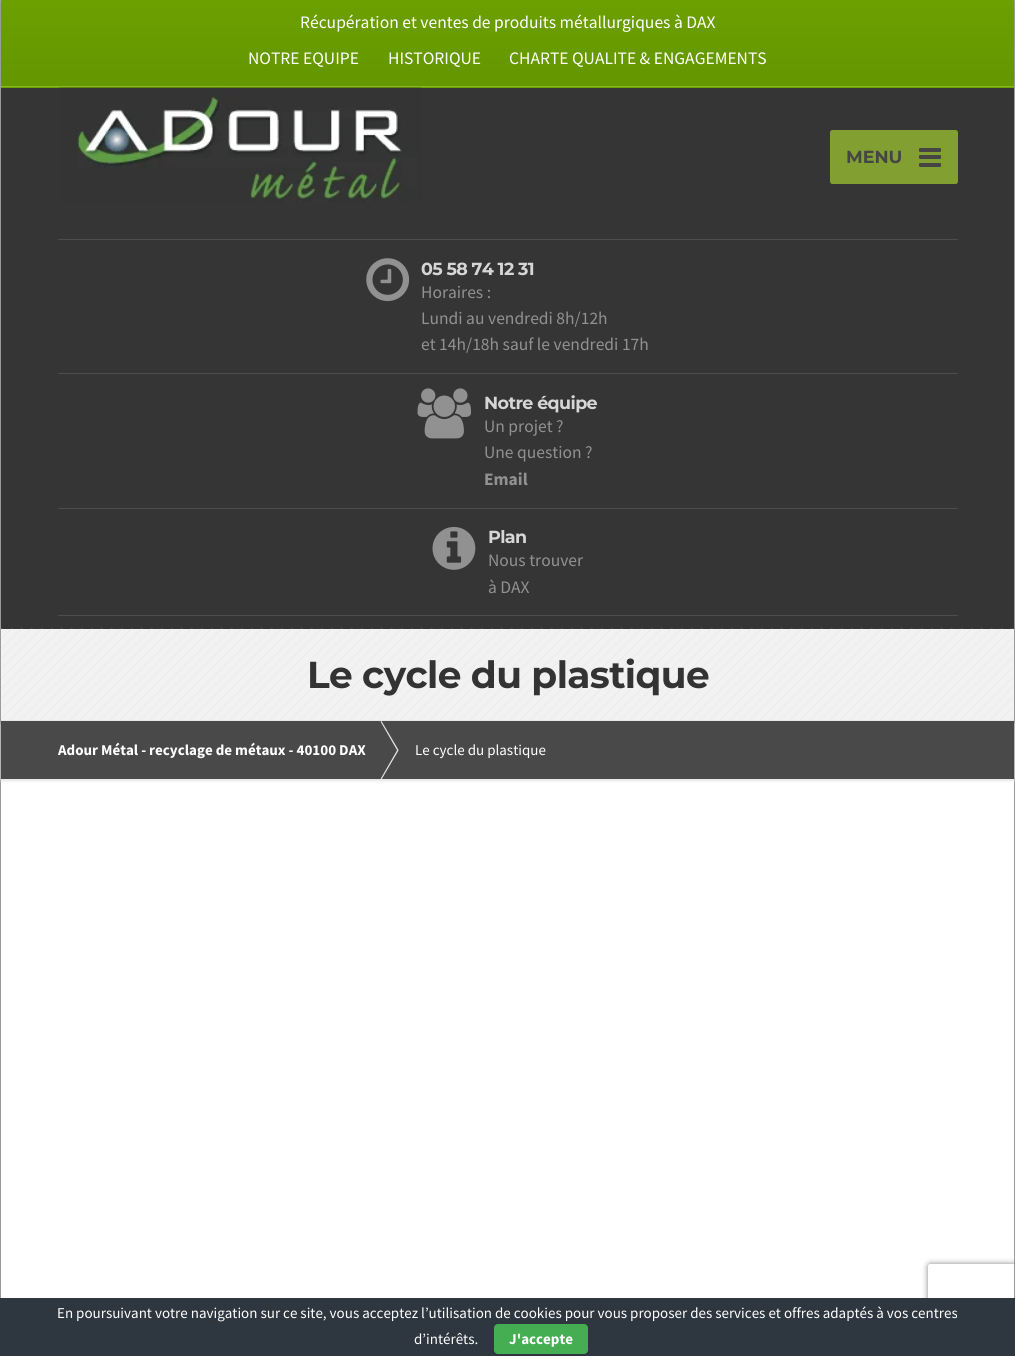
import math
import cairocffi as cairo

surface = cairo.ImageSurface(cairo.FORMAT_RGB24, 1015, 1356)
cr = cairo.Context(surface)
options = cairo.FontOptions()
options.set_hint_metrics(cairo.HINT_METRICS_OFF)
options.set_hint_style(cairo.HINT_STYLE_NONE)
cr.set_font_options(options)
cr.set_miter_limit(4)


def use_color(code):
    cr.set_source_rgb(*(v / 255 for v in bytes.fromhex(code[-6:])))


def spaced_text(x, y, s, letter, word):
    cr.move_to(x, y)
    for ch in s:
        cr.show_text(ch)
        cr.rel_move_to(letter + word * (ch == ' '), 0)


def round_rect(x, y, w, h, r):
    cr.new_sub_path()
    for i, (u, v) in enumerate([(x + w - r, y + h - r), (x + r, y + h - r), (x + r, y + r), (x + w - r, y + r)]):
        cr.arc(u, v, r, i * math.pi / 2, (i + 1) * math.pi / 2)
    cr.close_path()


def shadow(x, y, w, h, r, blur, alpha):
    cr.push_group_with_content(cairo.CONTENT_ALPHA)
    cr.set_operator(cairo.OPERATOR_SOURCE)
    for i in range(15, -16, -2):
        e = blur * i / 6
        if min(w, h) + 2 * e > 0:
            cr.set_source_rgba(0, 0, 0, alpha * math.erfc((i - 1) / 8.5) / 2)
            round_rect(x - e, y - e, w + 2 * e, h + 2 * e, max(0, min(r + e + blur * .6, min(w, h) / 2 + e)))
            cr.fill()
    cr.mask(cr.pop_group())


def picture(path, x, y, w, h):
    cr.save()
    cr.set_source_surface(cairo.ImageSurface.create_from_png(path), x, y)
    cr.rectangle(x, y, w, h)
    cr.fill()
    cr.restore()


use_color("#bababa")
cr.paint()
use_color("#000000")
shadow(1, 0, 1013, 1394, 0, 12.5, 0.33)
use_color("#ffffff")
cr.rectangle(1, 779, 1013, 519)
cr.fill()
use_color("#6c9f00")
cr.rectangle(1, 87, 1013, 1)
cr.fill()
gradient = cairo.LinearGradient(508, 0, 508, 86)
gradient.add_color_stop_rgba(0, 0.424, 0.624, 0, 1)
gradient.add_color_stop_rgba(1, 0.392, 0.592, 0, 1)
cr.set_source(gradient)
cr.rectangle(1, 0, 1013, 86)
cr.fill()
use_color("#86b91a")
cr.rectangle(1, 86, 1013, 1)
cr.fill()
cr.select_font_face("Source Sans Pro")
cr.set_font_size(17.5)
use_color("#ffffff")
cr.move_to(300, 28)
cr.show_text("Récupération et ventes de produits métallurgiques à DAX")
cr.move_to(248, 64)
cr.show_text("NOTRE EQUIPE")
cr.move_to(388, 64)
cr.show_text("HISTORIQUE")
cr.move_to(509, 64)
cr.show_text("CHARTE QUALITE & ENGAGEMENTS")
use_color("#353535")
cr.rectangle(1, 88, 1013, 541)
cr.fill()
picture("img1.png", 59, 87, 363, 116)
use_color("#81a031")
round_rect(830, 130, 128, 54, 2.5)
cr.fill()
cr.select_font_face("Montserrat Thin")
use_color("#454545")
cr.move_to(846, 163)
cr.show_text("MENU")
round_rect(919, 148, 22, 4, 1)
cr.fill()
round_rect(919, 155, 22, 4, 1)
cr.fill()
round_rect(919, 163, 22, 4, 1)
cr.fill()
use_color("#4d4d4d")
cr.rectangle(58, 239, 900, 1)
cr.fill()
cr.rectangle(58, 373, 900, 1)
cr.fill()
picture("img2.png", 366, 258, 44, 44)
use_color("#d6d6d6")
spaced_text(421, 275, "05 58 74 12 31", -0.6, 0)
cr.select_font_face("Source Sans Pro")
use_color("#919191")
cr.move_to(421, 298)
cr.show_text("Horaires :")
cr.move_to(421, 324)
cr.show_text("Lundi au vendredi 8h/12h")
cr.move_to(421, 350)
cr.show_text("et 14h/18h sauf le vendredi 17h")
use_color("#4d4d4d")
cr.rectangle(58, 508, 900, 1)
cr.fill()
picture("img3.png", 417, 388, 55, 51)
cr.select_font_face("Montserrat Thin")
use_color("#d6d6d6")
spaced_text(484, 409, "Notre équipe", -0.6, 0)
cr.select_font_face("Source Sans Pro")
use_color("#919191")
cr.move_to(484, 432)
cr.show_text("Un projet ?")
cr.move_to(484, 458)
cr.show_text("Une question ?")
cr.select_font_face("Source Sans Pro", cairo.FONT_SLANT_NORMAL, cairo.FONT_WEIGHT_BOLD)
cr.move_to(484, 485)
cr.show_text("Email")
use_color("#4d4d4d")
cr.rectangle(58, 615, 900, 1)
cr.fill()
picture("img4.png", 432, 527, 44, 43)
cr.select_font_face("Montserrat Thin")
use_color("#d6d6d6")
spaced_text(488, 543, "Plan", -0.6, 0)
cr.select_font_face("Source Sans Pro")
use_color("#919191")
cr.move_to(488, 566)
cr.show_text("Nous trouver")
cr.move_to(488, 593)
cr.show_text("à DAX")
use_color("#f2f2f2")
cr.rectangle(1, 629, 1013, 91)
cr.fill()
picture("img5.png", 1, 628, 1012, 92)
use_color("#e6e6e6")
cr.rectangle(1, 720, 1013, 1)
cr.fill()
cr.select_font_face("Montserrat Thin")
cr.set_font_size(37.5)
use_color("#333333")
spaced_text(307, 688, "Le cycle du plastique", -0.6, 0)
use_color("#e6e6e6")
shadow(1, 724, 1013, 57, 0, 1, 1)
use_color("#494949")
cr.rectangle(1, 721, 1013, 58)
cr.fill()
cr.select_font_face("Source Sans Pro", cairo.FONT_SLANT_NORMAL, cairo.FONT_WEIGHT_BOLD)
cr.set_font_size(15)
use_color("#ffffff")
cr.move_to(58, 755)
cr.show_text("Adour Métal - recyclage de métaux - 40100 DAX")
use_color("#e2e2e2")
cr.new_path()
cr.move_to(380.5, 721.5)
cr.line_to(381.5, 721)
cr.line_to(398.5, 750)
cr.line_to(397.5, 751)
cr.close_path()
cr.fill()
cr.new_path()
cr.move_to(397.5, 749.5)
cr.line_to(398.5, 750.5)
cr.line_to(381.5, 779.5)
cr.line_to(380.5, 779)
cr.close_path()
cr.fill()
cr.select_font_face("Source Sans Pro")
use_color("#ffffff")
cr.move_to(415, 755)
cr.show_text("Le cycle du plastique")
cr.save()
cr.set_fill_rule(cairo.FILL_RULE_EVEN_ODD)
cr.new_path()
cr.move_to(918, 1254)
cr.line_to(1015, 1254)
cr.line_to(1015, 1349)
cr.line_to(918, 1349)
cr.close_path()
cr.move_to(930.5, 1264)
cr.line_to(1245.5, 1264)
cr.curve_to(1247, 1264, 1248, 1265, 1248, 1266.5)
cr.line_to(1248, 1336.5)
cr.curve_to(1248, 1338, 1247, 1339, 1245.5, 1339)
cr.line_to(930.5, 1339)
cr.curve_to(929, 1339, 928, 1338, 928, 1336.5)
cr.line_to(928, 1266.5)
cr.curve_to(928, 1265, 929, 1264, 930.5, 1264)
cr.close_path()
cr.clip()
use_color("#808080")
shadow(928, 1264, 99, 75, 2.5, 3, 1)
cr.restore()
use_color("#2e363f")
cr.rectangle(0, 1298, 1015, 58)
cr.fill()
use_color("#ffffff")
cr.move_to(57, 1318)
cr.show_text("En poursuivant votre navigation sur ce site, vous acceptez l’utilisation de cookies pour vous proposer des services et offres adaptés à vos centres")
cr.move_to(414, 1344)
cr.show_text("d’intérêts.")
use_color("#45ae52")
round_rect(494, 1324, 94, 30, 4)
cr.fill()
cr.select_font_face("Source Sans Pro", cairo.FONT_SLANT_NORMAL, cairo.FONT_WEIGHT_BOLD)
use_color("#ffffff")
cr.move_to(509, 1344)
cr.show_text("J'accepte")
surface.write_to_png("result.png")
